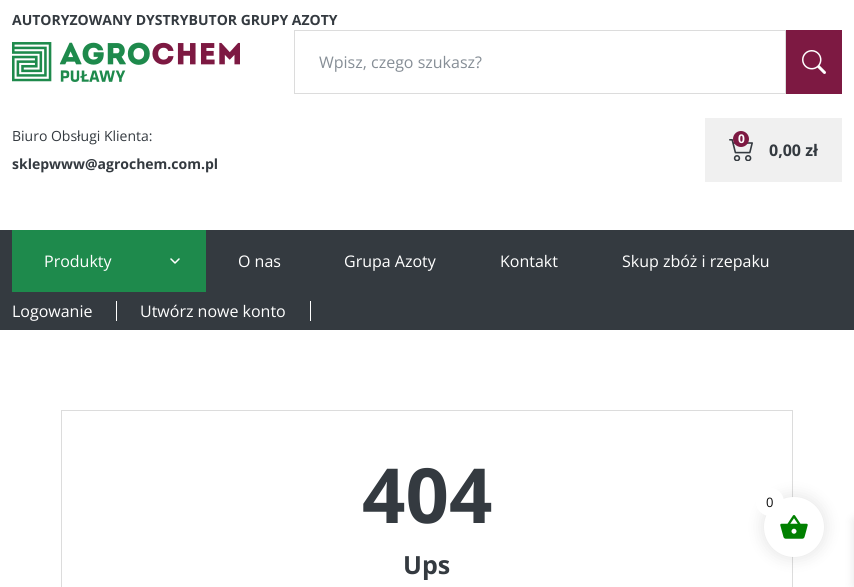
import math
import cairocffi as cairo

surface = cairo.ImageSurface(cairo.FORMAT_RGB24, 854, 587)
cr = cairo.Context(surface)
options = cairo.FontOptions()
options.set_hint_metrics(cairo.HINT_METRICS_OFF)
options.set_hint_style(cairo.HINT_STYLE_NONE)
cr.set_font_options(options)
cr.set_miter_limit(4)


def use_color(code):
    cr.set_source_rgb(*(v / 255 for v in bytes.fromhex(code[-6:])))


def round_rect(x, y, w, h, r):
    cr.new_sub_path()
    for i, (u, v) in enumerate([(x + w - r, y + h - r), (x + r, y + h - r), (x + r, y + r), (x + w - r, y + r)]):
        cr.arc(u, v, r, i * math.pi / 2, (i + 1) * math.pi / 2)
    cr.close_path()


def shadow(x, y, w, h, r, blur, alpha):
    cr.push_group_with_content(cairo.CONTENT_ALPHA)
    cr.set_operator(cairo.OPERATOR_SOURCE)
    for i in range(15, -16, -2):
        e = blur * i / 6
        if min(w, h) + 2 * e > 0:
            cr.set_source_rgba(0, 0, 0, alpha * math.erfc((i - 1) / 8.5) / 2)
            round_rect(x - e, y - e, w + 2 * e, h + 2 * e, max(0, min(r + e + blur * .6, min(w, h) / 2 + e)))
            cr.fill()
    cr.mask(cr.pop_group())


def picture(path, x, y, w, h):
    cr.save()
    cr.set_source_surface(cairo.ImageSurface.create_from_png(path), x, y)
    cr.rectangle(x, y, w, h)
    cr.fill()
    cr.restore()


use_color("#ffffff")
cr.paint()
cr.select_font_face("Open Sans", cairo.FONT_SLANT_NORMAL, cairo.FONT_WEIGHT_BOLD)
cr.set_font_size(14)
use_color("#343a40")
cr.move_to(12, 25)
cr.show_text("AUTORYZOWANY DYSTRYBUTOR GRUPY AZOTY")
picture("img1.png", 12, 42, 228, 40)
cr.rectangle(294.5, 30.5, 491, 63)
use_color("#dcdcdc")
cr.set_line_width(1)
cr.stroke()
cr.select_font_face("Open Sans")
cr.set_font_size(16)
use_color("#868e96")
cr.move_to(319, 68)
cr.show_text("Wpisz, czego szukasz?")
use_color("#7d1942")
cr.rectangle(786, 30, 56, 64)
cr.fill()
picture("img2.png", 802, 50, 24, 24)
cr.set_font_size(14)
use_color("#343a40")
cr.move_to(12, 141)
cr.show_text("Biuro Obsługi Klienta:")
cr.select_font_face("Open Sans", cairo.FONT_SLANT_NORMAL, cairo.FONT_WEIGHT_BOLD)
cr.move_to(12, 169)
cr.show_text("sklepwww@agrochem.com.pl")
use_color("#f0f0f0")
cr.rectangle(705, 118, 137, 64)
cr.fill()
picture("img3.png", 729, 139, 24, 22)
use_color("#7d1942")
cr.arc(741, 139, 8, 0, 2 * math.pi)
cr.fill()
cr.set_font_size(12)
use_color("#ffffff")
cr.move_to(738, 143)
cr.show_text("0")
cr.set_font_size(16)
use_color("#343a40")
cr.move_to(769, 156)
cr.show_text("0,00 zł")
cr.rectangle(0, 230, 854, 100)
cr.fill()
use_color("#1e8a4c")
cr.rectangle(12, 230, 194, 62)
cr.fill()
cr.select_font_face("Open Sans")
use_color("#ffffff")
cr.move_to(44, 267)
cr.show_text("Produkty")
cr.new_path()
cr.move_to(171, 259)
cr.line_to(175, 263)
cr.line_to(179, 259)
cr.set_line_width(1.5)
cr.set_line_cap(cairo.LINE_CAP_ROUND)
cr.set_line_join(cairo.LINE_JOIN_ROUND)
cr.stroke()
cr.move_to(238, 267)
cr.show_text("O nas")
cr.move_to(344, 267)
cr.show_text("Grupa Azoty")
cr.move_to(500, 267)
cr.show_text("Kontakt")
cr.move_to(622, 267)
cr.show_text("Skup zbóż i rzepaku")
cr.move_to(12, 317)
cr.show_text("Logowanie")
cr.rectangle(116, 301, 1, 20)
cr.fill()
cr.move_to(140, 317)
cr.show_text("Utwórz nowe konto")
cr.rectangle(310, 301, 1, 20)
cr.fill()
cr.rectangle(61.5, 410.5, 731, 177)
use_color("#dcdcdc")
cr.set_line_width(1)
cr.set_line_cap(cairo.LINE_CAP_BUTT)
cr.set_line_join(cairo.LINE_JOIN_MITER)
cr.stroke()
cr.select_font_face("Open Sans", cairo.FONT_SLANT_NORMAL, cairo.FONT_WEIGHT_BOLD)
cr.set_font_size(76)
use_color("#343a40")
cr.move_to(362, 523)
cr.show_text("404")
cr.set_font_size(25)
cr.move_to(403, 574)
cr.show_text("Ups")
use_color("#000000")
shadow(762, 495, 64, 64, 32, 7.5, 0.1)
use_color("#ffffff")
cr.arc(794, 527, 30, 0, 2 * math.pi)
cr.fill()
picture("img4.png", 780, 515, 28, 24)
cr.arc(770, 502, 14, 0, 2 * math.pi)
cr.fill()
cr.select_font_face("Open Sans")
cr.set_font_size(13)
use_color("#0a0a0a")
cr.move_to(766, 507)
cr.show_text("0")
use_color("#000000")
shadow(854, 520, 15, 66, 0, 5, 0.1)
surface.write_to_png("result.png")
